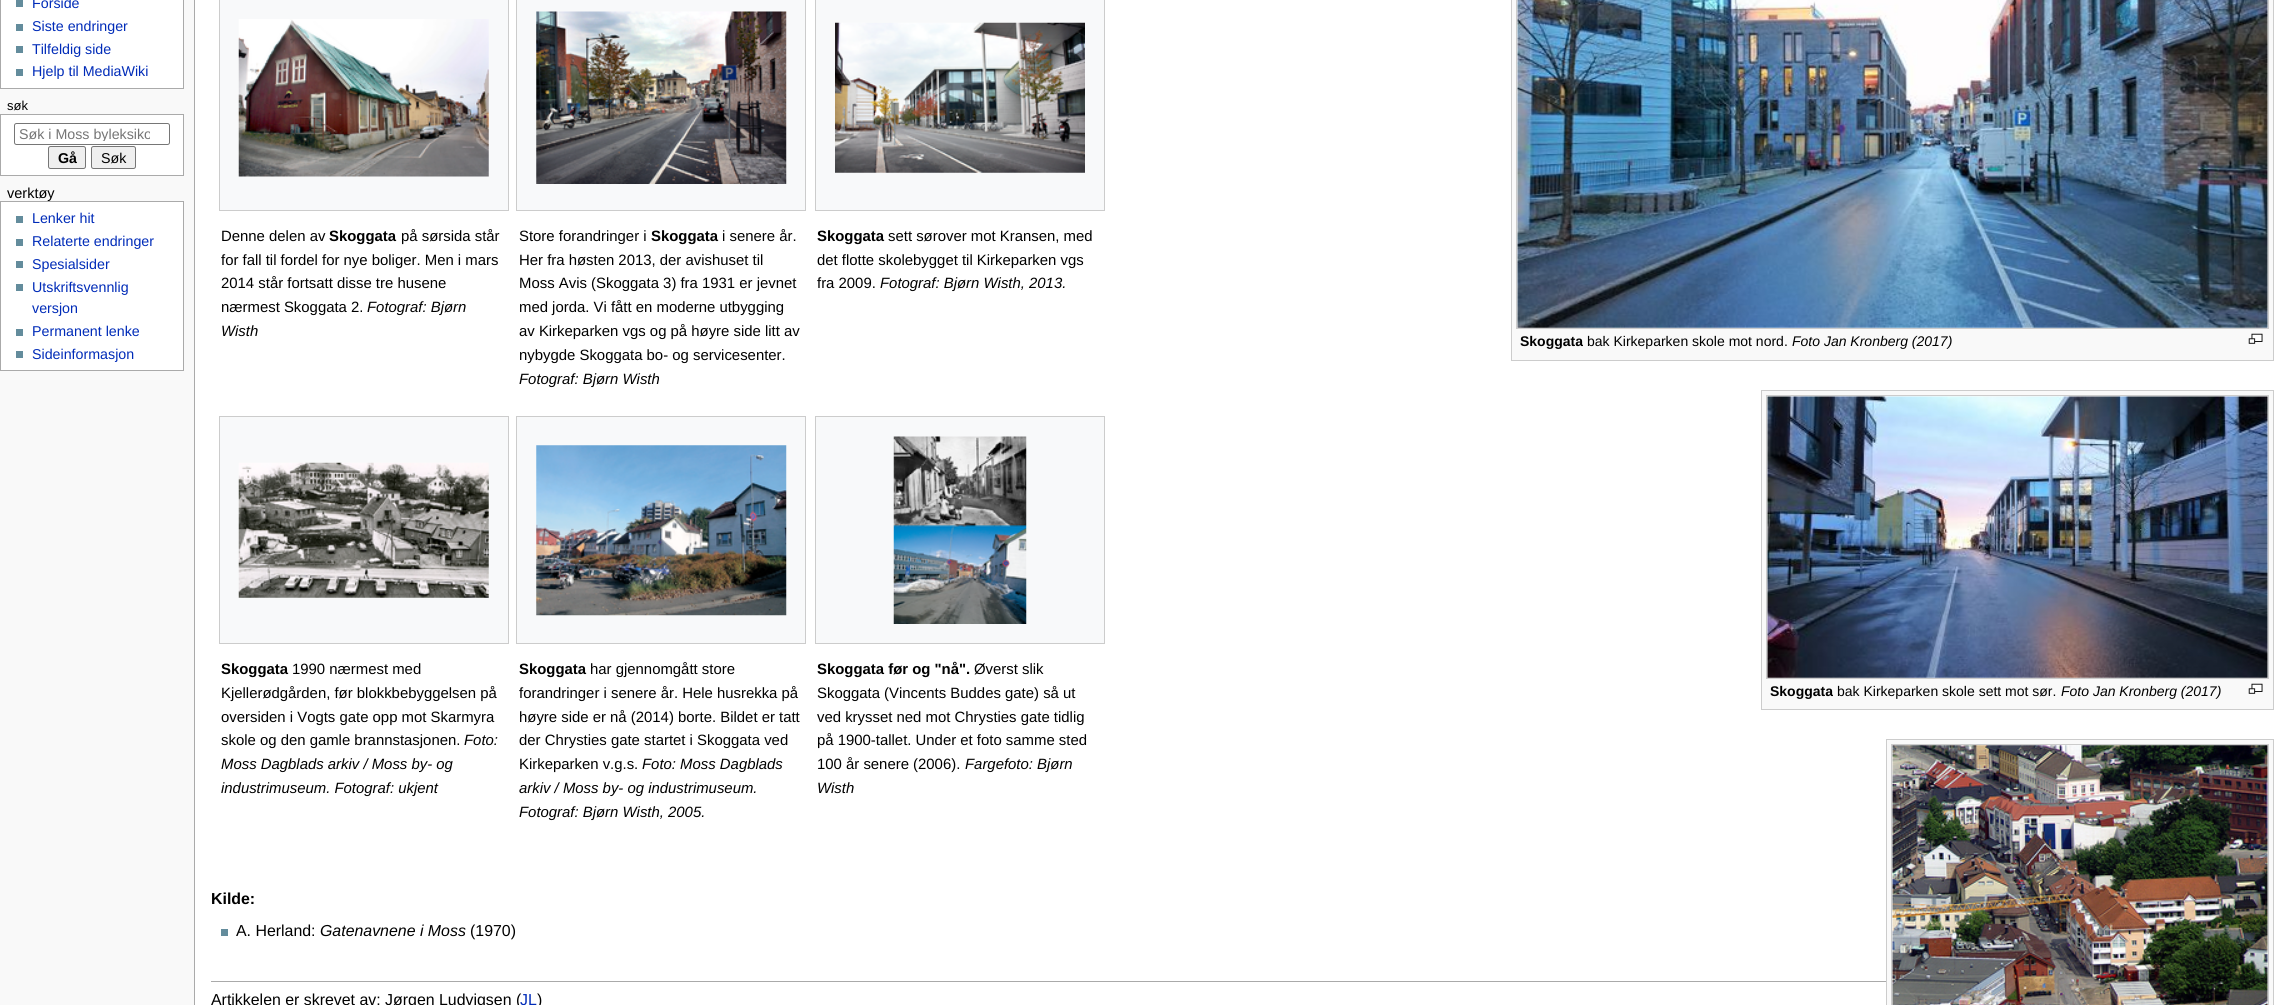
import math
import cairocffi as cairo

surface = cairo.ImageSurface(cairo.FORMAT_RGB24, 2290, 1005)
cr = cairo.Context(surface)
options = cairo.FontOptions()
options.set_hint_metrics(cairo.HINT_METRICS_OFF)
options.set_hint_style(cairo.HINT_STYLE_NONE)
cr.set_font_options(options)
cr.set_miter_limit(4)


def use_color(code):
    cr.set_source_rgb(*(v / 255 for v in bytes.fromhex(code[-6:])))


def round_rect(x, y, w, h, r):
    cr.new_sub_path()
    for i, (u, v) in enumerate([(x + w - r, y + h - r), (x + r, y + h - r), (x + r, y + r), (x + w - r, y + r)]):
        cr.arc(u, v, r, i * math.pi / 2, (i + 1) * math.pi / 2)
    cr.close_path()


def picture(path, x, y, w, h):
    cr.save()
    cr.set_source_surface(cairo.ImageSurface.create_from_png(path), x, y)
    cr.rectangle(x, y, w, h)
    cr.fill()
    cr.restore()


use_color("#f9f9f9")
cr.paint()
use_color("#ffffff")
cr.rectangle(0.5, -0.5, 183, 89)
cr.fill_preserve()
use_color("#aaaaaa")
cr.set_line_width(1)
cr.stroke()
use_color("#638c9c")
cr.rectangle(16, 0, 7, 7)
cr.fill()
cr.select_font_face("Liberation Sans")
cr.set_font_size(14.25)
use_color("#002bb8")
cr.move_to(32, 8)
cr.show_text("Forside")
use_color("#638c9c")
cr.rectangle(16, 24, 7, 7)
cr.fill()
use_color("#002bb8")
cr.move_to(32, 31)
cr.show_text("Siste endringer")
use_color("#638c9c")
cr.rectangle(16, 46, 7, 7)
cr.fill()
use_color("#002bb8")
cr.move_to(32, 54)
cr.show_text("Tilfeldig side")
use_color("#638c9c")
cr.rectangle(16, 69, 7, 7)
cr.fill()
use_color("#002bb8")
cr.move_to(32, 76)
cr.show_text("Hjelp til MediaWiki")
cr.set_font_size(13)
use_color("#000000")
cr.move_to(7, 110)
cr.show_text("søk")
use_color("#ffffff")
cr.rectangle(0.5, 114.5, 183, 61)
cr.fill_preserve()
use_color("#aaaaaa")
cr.stroke()
round_rect(14.5, 123.5, 155, 21, 2)
use_color("#767676")
cr.stroke()
cr.save()
cr.rectangle(19, 126, 131, 15)
cr.clip()
cr.set_font_size(14.25)
use_color("#757575")
cr.move_to(19, 139)
cr.show_text("Søk i Moss byleksiko")
cr.restore()
use_color("#efefef")
round_rect(48.5, 146.5, 37, 22, 2)
cr.fill_preserve()
use_color("#767676")
cr.stroke()
cr.select_font_face("Liberation Sans", cairo.FONT_SLANT_NORMAL, cairo.FONT_WEIGHT_BOLD)
cr.set_font_size(14.25)
use_color("#000000")
cr.move_to(58, 163)
cr.show_text("Gå")
use_color("#efefef")
round_rect(91.5, 146.5, 44, 22, 2)
cr.fill_preserve()
use_color("#767676")
cr.stroke()
cr.select_font_face("Liberation Sans")
use_color("#000000")
cr.move_to(101, 163)
cr.show_text("Søk")
cr.set_font_size(14.5)
cr.move_to(7, 198)
cr.show_text("verktøy")
use_color("#ffffff")
cr.rectangle(0.5, 201.5, 183, 169)
cr.fill_preserve()
use_color("#aaaaaa")
cr.stroke()
use_color("#638c9c")
cr.rectangle(16, 216, 7, 7)
cr.fill()
cr.set_font_size(14.25)
use_color("#002bb8")
cr.move_to(32, 223)
cr.show_text("Lenker hit")
use_color("#638c9c")
cr.rectangle(16, 239, 7, 7)
cr.fill()
use_color("#002bb8")
cr.move_to(32, 246)
cr.show_text("Relaterte endringer")
use_color("#638c9c")
cr.rectangle(16, 261, 7, 7)
cr.fill()
use_color("#002bb8")
cr.move_to(32, 269)
cr.show_text("Spesialsider")
use_color("#638c9c")
cr.rectangle(16, 284, 7, 7)
cr.fill()
use_color("#002bb8")
cr.move_to(32, 292)
cr.show_text("Utskriftsvennlig")
cr.move_to(32, 313)
cr.show_text("versjon")
use_color("#638c9c")
cr.rectangle(16, 329, 7, 7)
cr.fill()
use_color("#002bb8")
cr.move_to(32, 336)
cr.show_text("Permanent lenke")
use_color("#638c9c")
cr.rectangle(16, 351, 7, 7)
cr.fill()
use_color("#002bb8")
cr.move_to(32, 359)
cr.show_text("Sideinformasjon")
use_color("#ffffff")
cr.rectangle(195, 0, 2095, 1005)
cr.fill()
use_color("#aaaaaa")
cr.rectangle(194, 0, 1, 1005)
cr.fill()
use_color("#f8f9fa")
cr.rectangle(219.5, -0.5, 289, 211)
cr.fill_preserve()
use_color("#cccccc")
cr.stroke()
picture("img1.png", 238, 19, 251, 158)
cr.set_font_size(14.9)
use_color("#000000")
cr.move_to(221, 241)
cr.show_text("Denne delen av")
cr.select_font_face("Liberation Sans", cairo.FONT_SLANT_NORMAL, cairo.FONT_WEIGHT_BOLD)
cr.move_to(329, 241)
cr.show_text("Skoggata")
cr.select_font_face("Liberation Sans")
cr.move_to(401, 241)
cr.show_text("på sørsida står")
cr.move_to(221, 265)
cr.show_text("for fall til fordel for nye boliger. Men i mars")
cr.move_to(221, 288)
cr.show_text("2014 står fortsatt disse tre husene")
cr.move_to(221, 312)
cr.show_text("nærmest Skoggata 2.")
cr.select_font_face("Liberation Sans", cairo.FONT_SLANT_ITALIC)
cr.move_to(367, 312)
cr.show_text("Fotograf: Bjørn")
cr.move_to(221, 336)
cr.show_text("Wisth")
use_color("#f8f9fa")
cr.rectangle(516.5, -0.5, 289, 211)
cr.fill_preserve()
use_color("#cccccc")
cr.stroke()
picture("img2.png", 536, 11, 251, 173)
cr.select_font_face("Liberation Sans")
use_color("#000000")
cr.move_to(519, 241)
cr.show_text("Store forandringer i")
cr.select_font_face("Liberation Sans", cairo.FONT_SLANT_NORMAL, cairo.FONT_WEIGHT_BOLD)
cr.move_to(651, 241)
cr.show_text("Skoggata")
cr.select_font_face("Liberation Sans")
cr.move_to(722, 241)
cr.show_text("i senere år.")
cr.move_to(519, 265)
cr.show_text("Her fra høsten 2013, der avishuset til")
cr.move_to(519, 288)
cr.show_text("Moss Avis (Skoggata 3) fra 1931 er jevnet")
cr.move_to(519, 312)
cr.show_text("med jorda. Vi fått en moderne utbygging")
cr.move_to(519, 336)
cr.show_text("av Kirkeparken vgs og på høyre side litt av")
cr.move_to(519, 360)
cr.show_text("nybygde Skoggata bo- og servicesenter.")
cr.select_font_face("Liberation Sans", cairo.FONT_SLANT_ITALIC)
cr.move_to(519, 384)
cr.show_text("Fotograf: Bjørn Wisth")
use_color("#f8f9fa")
cr.rectangle(815.5, -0.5, 289, 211)
cr.fill_preserve()
use_color("#cccccc")
cr.stroke()
picture("img3.png", 835, 22, 250, 151)
cr.select_font_face("Liberation Sans", cairo.FONT_SLANT_NORMAL, cairo.FONT_WEIGHT_BOLD)
use_color("#000000")
cr.move_to(817, 241)
cr.show_text("Skoggata")
cr.select_font_face("Liberation Sans")
cr.move_to(888, 241)
cr.show_text("sett sørover mot Kransen, med")
cr.move_to(817, 265)
cr.show_text("det flotte skolebygget til Kirkeparken vgs")
cr.move_to(817, 288)
cr.show_text("fra 2009.")
cr.select_font_face("Liberation Sans", cairo.FONT_SLANT_ITALIC)
cr.move_to(880, 288)
cr.show_text("Fotograf: Bjørn Wisth, 2013.")
use_color("#f8f9fa")
cr.rectangle(219.5, 416.5, 289, 227)
cr.fill_preserve()
use_color("#cccccc")
cr.stroke()
picture("img4.png", 238, 462, 251, 136)
cr.select_font_face("Liberation Sans", cairo.FONT_SLANT_NORMAL, cairo.FONT_WEIGHT_BOLD)
use_color("#000000")
cr.move_to(221, 674)
cr.show_text("Skoggata")
cr.select_font_face("Liberation Sans")
cr.move_to(292, 674)
cr.show_text("1990 nærmest med")
cr.move_to(221, 698)
cr.show_text("Kjellerødgården, før blokkbebyggelsen på")
cr.move_to(221, 722)
cr.show_text("oversiden i Vogts gate opp mot Skarmyra")
cr.move_to(221, 745)
cr.show_text("skole og den gamle brannstasjonen.")
cr.select_font_face("Liberation Sans", cairo.FONT_SLANT_ITALIC)
cr.move_to(464, 745)
cr.show_text("Foto:")
cr.move_to(221, 769)
cr.show_text("Moss Dagblads arkiv / Moss by- og")
cr.move_to(221, 793)
cr.show_text("industrimuseum. Fotograf: ukjent")
use_color("#f8f9fa")
cr.rectangle(516.5, 416.5, 289, 227)
cr.fill_preserve()
use_color("#cccccc")
cr.stroke()
picture("img5.png", 536, 445, 251, 171)
cr.select_font_face("Liberation Sans", cairo.FONT_SLANT_NORMAL, cairo.FONT_WEIGHT_BOLD)
use_color("#000000")
cr.move_to(519, 674)
cr.show_text("Skoggata")
cr.select_font_face("Liberation Sans")
cr.move_to(590, 674)
cr.show_text("har gjennomgått store")
cr.move_to(519, 698)
cr.show_text("forandringer i senere år. Hele husrekka på")
cr.move_to(519, 722)
cr.show_text("høyre side er nå (2014) borte. Bildet er tatt")
cr.move_to(519, 745)
cr.show_text("der Chrysties gate startet i Skoggata ved")
cr.move_to(519, 769)
cr.show_text("Kirkeparken v.g.s.")
cr.select_font_face("Liberation Sans", cairo.FONT_SLANT_ITALIC)
cr.move_to(642, 769)
cr.show_text("Foto: Moss Dagblads")
cr.move_to(519, 793)
cr.show_text("arkiv / Moss by- og industrimuseum.")
cr.move_to(519, 817)
cr.show_text("Fotograf: Bjørn Wisth, 2005.")
use_color("#f8f9fa")
cr.rectangle(815.5, 416.5, 289, 227)
cr.fill_preserve()
use_color("#cccccc")
cr.stroke()
picture("img6.png", 893, 436, 134, 188)
cr.select_font_face("Liberation Sans", cairo.FONT_SLANT_NORMAL, cairo.FONT_WEIGHT_BOLD)
use_color("#000000")
cr.move_to(817, 674)
cr.show_text("Skoggata før og \"nå\".")
cr.select_font_face("Liberation Sans")
cr.move_to(974, 674)
cr.show_text("Øverst slik")
cr.move_to(817, 698)
cr.show_text("Skoggata (Vincents Buddes gate) så ut")
cr.move_to(817, 722)
cr.show_text("ved krysset ned mot Chrysties gate tidlig")
cr.move_to(817, 745)
cr.show_text("på 1900-tallet. Under et foto samme sted")
cr.move_to(817, 769)
cr.show_text("100 år senere (2006).")
cr.select_font_face("Liberation Sans", cairo.FONT_SLANT_ITALIC)
cr.move_to(965, 769)
cr.show_text("Fargefoto: Bjørn")
cr.move_to(817, 793)
cr.show_text("Wisth")
use_color("#f9f9f9")
cr.rectangle(1512, 0, 761, 360)
cr.fill()
use_color("#cccccc")
cr.rectangle(1511, 360, 763, 1)
cr.fill()
cr.rectangle(2273, 0, 1, 361)
cr.fill()
cr.rectangle(1511, 0, 1, 361)
cr.fill()
cr.rectangle(1516.5, -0.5, 752, 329)
cr.stroke()
picture("img7.png", 1517, 0, 751, 328)
picture("img8.png", 2248, 333, 15, 11)
cr.select_font_face("Liberation Sans", cairo.FONT_SLANT_NORMAL, cairo.FONT_WEIGHT_BOLD)
cr.set_font_size(14)
use_color("#000000")
cr.move_to(1520, 346)
cr.show_text("Skoggata")
cr.select_font_face("Liberation Sans")
cr.move_to(1587, 346)
cr.show_text("bak Kirkeparken skole mot nord.")
cr.select_font_face("Liberation Sans", cairo.FONT_SLANT_ITALIC)
cr.move_to(1792, 346)
cr.show_text("Foto Jan Kronberg (2017)")
use_color("#f9f9f9")
cr.rectangle(1762, 391, 511, 318)
cr.fill()
use_color("#cccccc")
cr.rectangle(1761, 390, 513, 1)
cr.fill()
cr.rectangle(1761, 709, 513, 1)
cr.fill()
cr.rectangle(2273, 390, 1, 320)
cr.fill()
cr.rectangle(1761, 390, 1, 320)
cr.fill()
cr.rectangle(1766.5, 395.5, 502, 283)
cr.stroke()
picture("img9.png", 1767, 396, 501, 282)
picture("img8.png", 2248, 683, 15, 11)
cr.select_font_face("Liberation Sans", cairo.FONT_SLANT_NORMAL, cairo.FONT_WEIGHT_BOLD)
use_color("#000000")
cr.move_to(1770, 696)
cr.show_text("Skoggata")
cr.select_font_face("Liberation Sans")
cr.move_to(1837, 696)
cr.show_text("bak Kirkeparken skole sett mot sør.")
cr.select_font_face("Liberation Sans", cairo.FONT_SLANT_ITALIC)
cr.move_to(2061, 696)
cr.show_text("Foto Jan Kronberg (2017)")
cr.select_font_face("Liberation Sans", cairo.FONT_SLANT_NORMAL, cairo.FONT_WEIGHT_BOLD)
cr.set_font_size(15.9)
cr.move_to(211, 904)
cr.show_text("Kilde:")
use_color("#f9f9f9")
cr.rectangle(1887, 740, 386, 265)
cr.fill()
use_color("#cccccc")
cr.rectangle(1886, 739, 388, 1)
cr.fill()
cr.rectangle(2273, 739, 1, 266)
cr.fill()
cr.rectangle(1886, 739, 1, 266)
cr.fill()
cr.rectangle(1891.5, 744.5, 377, 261)
cr.stroke()
picture("img10.png", 1892, 745, 376, 260)
use_color("#638c9c")
cr.rectangle(221, 929, 7, 7)
cr.fill()
cr.select_font_face("Liberation Sans")
use_color("#000000")
cr.move_to(236, 936)
cr.show_text("A. Herland:")
cr.select_font_face("Liberation Sans", cairo.FONT_SLANT_ITALIC)
cr.move_to(320, 936)
cr.show_text("Gatenavnene i Moss")
cr.select_font_face("Liberation Sans")
cr.move_to(470, 936)
cr.show_text("(1970)")
use_color("#aaaaaa")
cr.rectangle(211, 981, 1675, 1)
cr.fill()
use_color("#000000")
cr.move_to(211, 1005)
cr.show_text("Artikkelen er skrevet av: Jørgen Ludvigsen (")
use_color("#002bb8")
cr.move_to(520, 1005)
cr.show_text("JL")
use_color("#000000")
cr.move_to(537, 1005)
cr.show_text(")")
surface.write_to_png("result.png")
